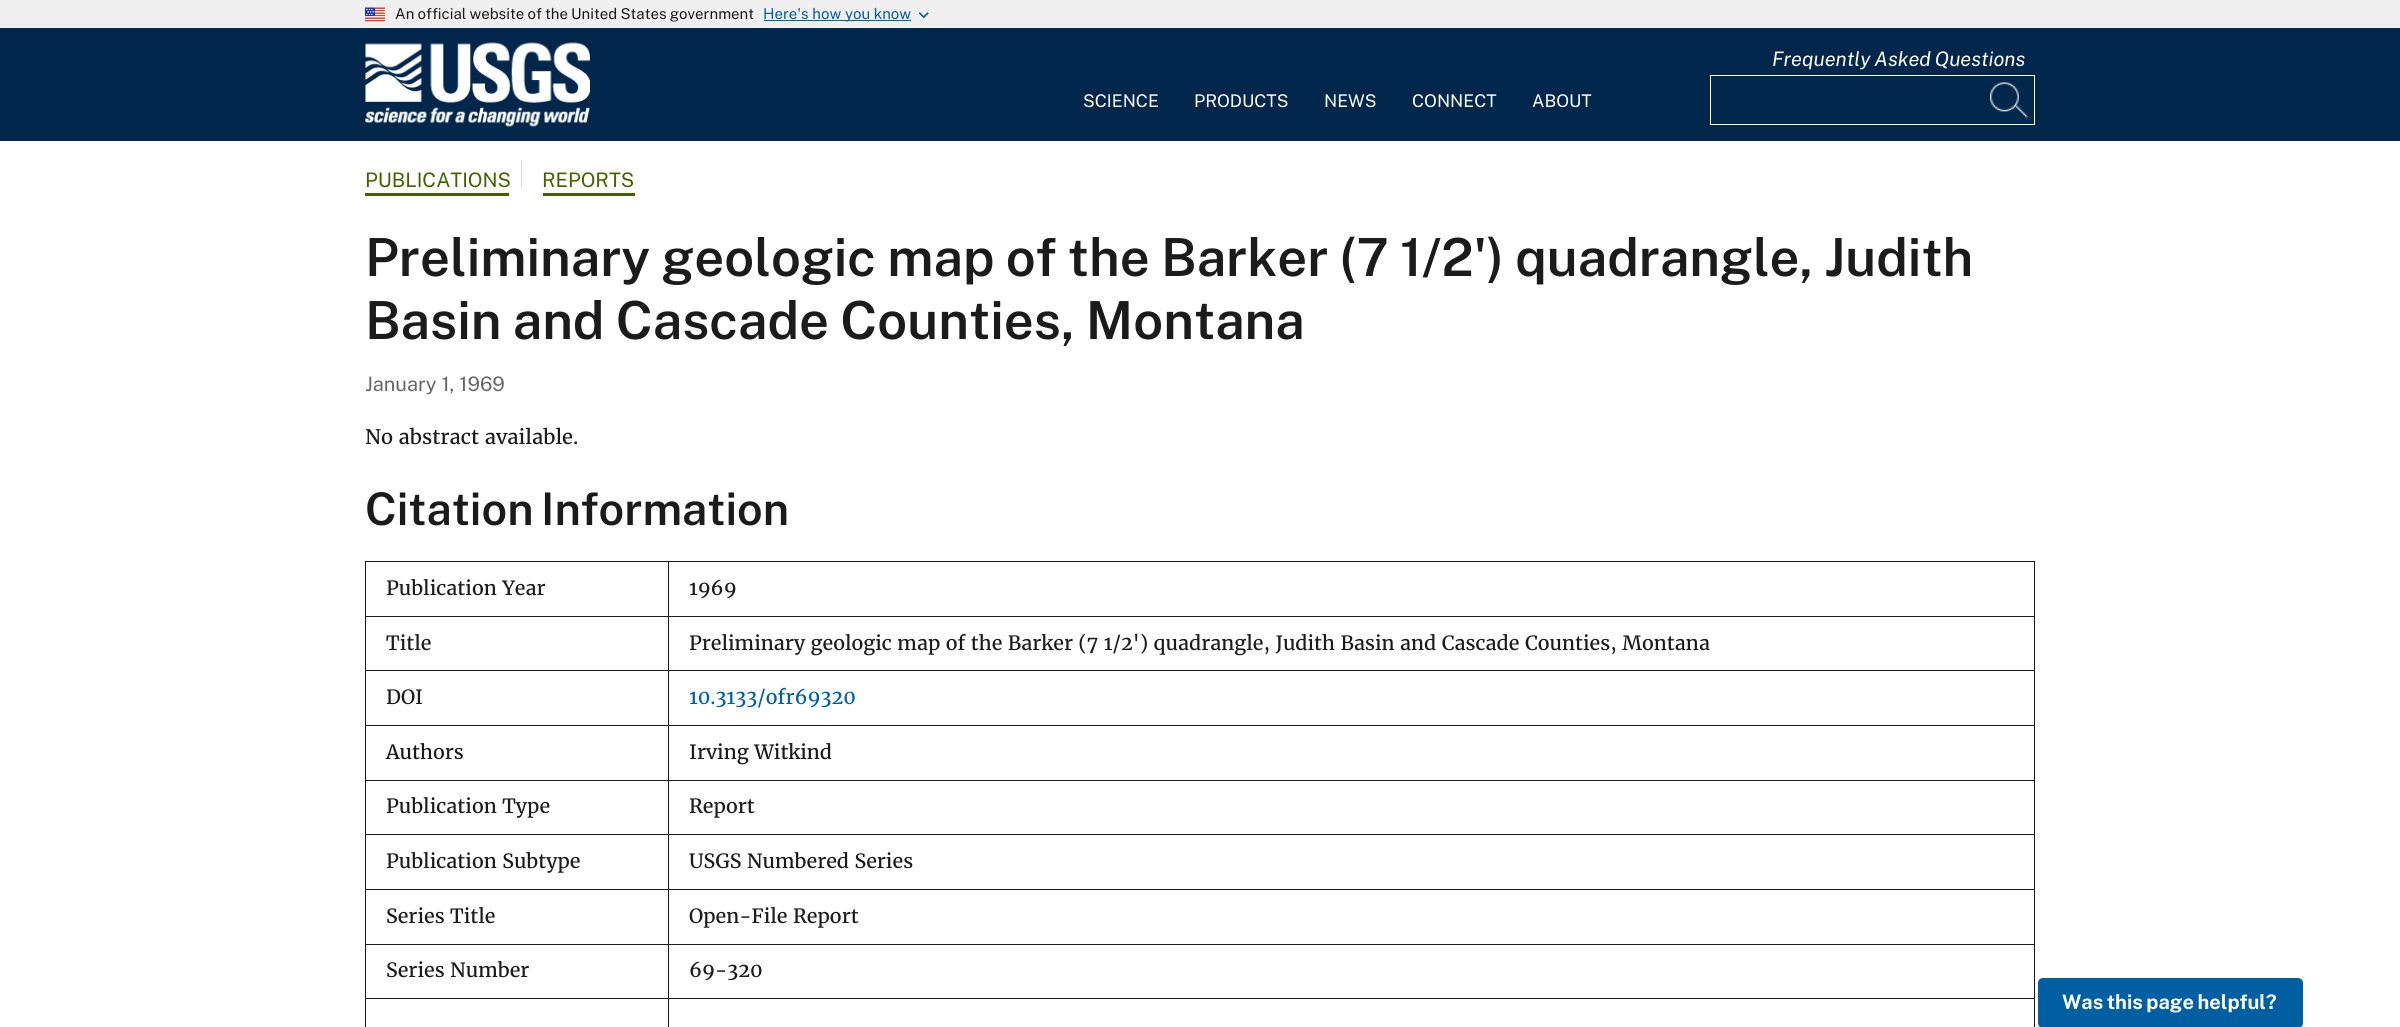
import math
import cairocffi as cairo

surface = cairo.ImageSurface(cairo.FORMAT_RGB24, 2400, 1027)
cr = cairo.Context(surface)
options = cairo.FontOptions()
options.set_hint_metrics(cairo.HINT_METRICS_OFF)
options.set_hint_style(cairo.HINT_STYLE_NONE)
cr.set_font_options(options)
cr.set_miter_limit(4)


def use_color(code):
    cr.set_source_rgb(*(v / 255 for v in bytes.fromhex(code[-6:])))


def spaced_text(x, y, s, letter, word):
    cr.move_to(x, y)
    for ch in s:
        cr.show_text(ch)
        cr.rel_move_to(letter + word * (ch == ' '), 0)


def round_rect(x, y, w, h, r):
    cr.new_sub_path()
    for i, (u, v) in enumerate([(x + w - r, y + h - r), (x + r, y + h - r), (x + r, y + r), (x + w - r, y + r)]):
        cr.arc(u, v, r, i * math.pi / 2, (i + 1) * math.pi / 2)
    cr.close_path()


def picture(path, x, y, w, h):
    cr.save()
    cr.set_source_surface(cairo.ImageSurface.create_from_png(path), x, y)
    cr.rectangle(x, y, w, h)
    cr.fill()
    cr.restore()


use_color("#ffffff")
cr.paint()
use_color("#f0f0f0")
cr.rectangle(0, 0, 2400, 28)
cr.fill()
picture("img1.png", 365, 7, 20, 15)
cr.select_font_face("Public Sans")
cr.set_font_size(15)
use_color("#1b1b1b")
spaced_text(395, 19, "An official website of the United States government", 0, -0.5)
use_color("#005ea2")
cr.rectangle(764, 20, 147, 1)
cr.fill()
cr.move_to(763, 19)
cr.show_text("Here's how you know")
picture("img2.png", 918, 12, 11, 7)
use_color("#00264c")
cr.rectangle(0, 28, 2400, 113)
cr.fill()
picture("img3.png", 365, 42, 225, 85)
cr.select_font_face("Public Sans", cairo.FONT_SLANT_ITALIC)
cr.set_font_size(20)
use_color("#ffffff")
spaced_text(1772, 66, "Frequently Asked Questions", 0, -1)
cr.rectangle(1710.5, 75.5, 324, 49)
cr.set_line_width(1)
cr.stroke()
picture("img4.png", 1990, 82, 38, 36)
cr.select_font_face("Public Sans")
cr.set_font_size(17.5)
cr.move_to(1083, 107)
cr.show_text("SCIENCE")
cr.move_to(1194, 107)
cr.show_text("PRODUCTS")
cr.move_to(1324, 107)
cr.show_text("NEWS")
cr.move_to(1412, 107)
cr.show_text("CONNECT")
cr.move_to(1532, 107)
cr.show_text("ABOUT")
cr.set_font_size(20)
use_color("#446100")
cr.move_to(365, 187)
cr.show_text("PUBLICATIONS")
cr.rectangle(365, 193, 144, 3)
cr.fill()
use_color("#dddddd")
cr.rectangle(521, 161, 1, 27)
cr.fill()
use_color("#446100")
cr.move_to(542, 187)
cr.show_text("REPORTS")
cr.rectangle(543, 193, 92, 3)
cr.fill()
cr.select_font_face("Public Sans SemiBold")
cr.set_font_size(52.5)
use_color("#1b1b1b")
spaced_text(365, 276, "Preliminary geologic map of the Barker (7 1/2') quadrangle, Judith", 0, -1)
spaced_text(365, 339, "Basin and Cascade Counties, Montana", 0, -1)
cr.select_font_face("Public Sans")
cr.set_font_size(20)
use_color("#666666")
cr.move_to(365, 391)
cr.show_text("January 1, 1969")
cr.select_font_face("Merriweather")
use_color("#1b1b1b")
cr.move_to(365, 444)
cr.show_text("No abstract available.")
cr.select_font_face("Public Sans SemiBold")
cr.set_font_size(45)
spaced_text(365, 525, "Citation Information", 0, -3)
cr.rectangle(668, 561, 1367, 1)
cr.fill()
cr.rectangle(668, 616, 1367, 1)
cr.fill()
cr.rectangle(668, 670, 1367, 1)
cr.fill()
cr.rectangle(668, 725, 1367, 1)
cr.fill()
cr.rectangle(668, 780, 1367, 1)
cr.fill()
cr.rectangle(668, 834, 1367, 1)
cr.fill()
cr.rectangle(668, 889, 1367, 1)
cr.fill()
cr.rectangle(668, 944, 1367, 1)
cr.fill()
cr.rectangle(668, 998, 1367, 1)
cr.fill()
cr.rectangle(668, 998, 1, 29)
cr.fill()
cr.rectangle(365, 998, 304, 1)
cr.fill()
cr.rectangle(668, 944, 1, 55)
cr.fill()
cr.rectangle(365, 944, 304, 1)
cr.fill()
cr.rectangle(668, 889, 1, 56)
cr.fill()
cr.rectangle(365, 889, 304, 1)
cr.fill()
cr.rectangle(668, 834, 1, 56)
cr.fill()
cr.rectangle(365, 834, 304, 1)
cr.fill()
cr.rectangle(668, 780, 1, 55)
cr.fill()
cr.rectangle(365, 780, 304, 1)
cr.fill()
cr.rectangle(668, 725, 1, 56)
cr.fill()
cr.rectangle(365, 725, 304, 1)
cr.fill()
cr.rectangle(668, 670, 1, 56)
cr.fill()
cr.rectangle(365, 670, 304, 1)
cr.fill()
cr.rectangle(668, 616, 1, 55)
cr.fill()
cr.rectangle(365, 616, 304, 1)
cr.fill()
cr.rectangle(668, 561, 1, 57)
cr.fill()
cr.rectangle(365, 561, 304, 1)
cr.fill()
cr.rectangle(365, 998, 1, 29)
cr.fill()
cr.rectangle(365, 944, 1, 55)
cr.fill()
cr.rectangle(365, 889, 1, 56)
cr.fill()
cr.rectangle(365, 834, 1, 56)
cr.fill()
cr.rectangle(365, 780, 1, 55)
cr.fill()
cr.rectangle(365, 725, 1, 56)
cr.fill()
cr.rectangle(365, 670, 1, 56)
cr.fill()
cr.rectangle(365, 616, 1, 55)
cr.fill()
cr.rectangle(365, 561, 1, 57)
cr.fill()
cr.select_font_face("Merriweather")
cr.set_font_size(19.6)
cr.move_to(386, 595)
cr.show_text("Publication Year")
cr.rectangle(2034, 998, 1, 29)
cr.fill()
cr.rectangle(2034, 944, 1, 55)
cr.fill()
cr.rectangle(2034, 889, 1, 56)
cr.fill()
cr.rectangle(2034, 834, 1, 56)
cr.fill()
cr.rectangle(2034, 780, 1, 55)
cr.fill()
cr.rectangle(2034, 725, 1, 56)
cr.fill()
cr.rectangle(2034, 670, 1, 56)
cr.fill()
cr.rectangle(2034, 616, 1, 55)
cr.fill()
cr.rectangle(2034, 561, 1, 57)
cr.fill()
cr.move_to(689, 595)
cr.show_text("1969")
cr.move_to(386, 650)
cr.show_text("Title")
cr.move_to(689, 650)
cr.show_text("Preliminary geologic map of the Barker (7 1/2') quadrangle, Judith Basin and Cascade Counties, Montana")
cr.move_to(386, 704)
cr.show_text("DOI")
use_color("#005ea2")
cr.move_to(689, 704)
cr.show_text("10.3133/ofr69320")
use_color("#1b1b1b")
cr.move_to(386, 759)
cr.show_text("Authors")
cr.move_to(689, 759)
cr.show_text("Irving Witkind")
cr.move_to(386, 813)
cr.show_text("Publication Type")
cr.move_to(689, 813)
cr.show_text("Report")
cr.move_to(386, 868)
cr.show_text("Publication Subtype")
cr.move_to(689, 868)
cr.show_text("USGS Numbered Series")
cr.move_to(386, 923)
cr.show_text("Series Title")
cr.move_to(689, 923)
cr.show_text("Open-File Report")
cr.move_to(386, 977)
cr.show_text("Series Number")
cr.move_to(689, 977)
cr.show_text("69-320")
use_color("#005ea2")
round_rect(2038, 978, 265, 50, 5)
cr.fill()
cr.select_font_face("Public Sans", cairo.FONT_SLANT_NORMAL, cairo.FONT_WEIGHT_BOLD)
cr.set_font_size(20)
use_color("#ffffff")
spaced_text(2062, 1009, "Was this page helpful?", 0, -1)
surface.write_to_png("result.png")
